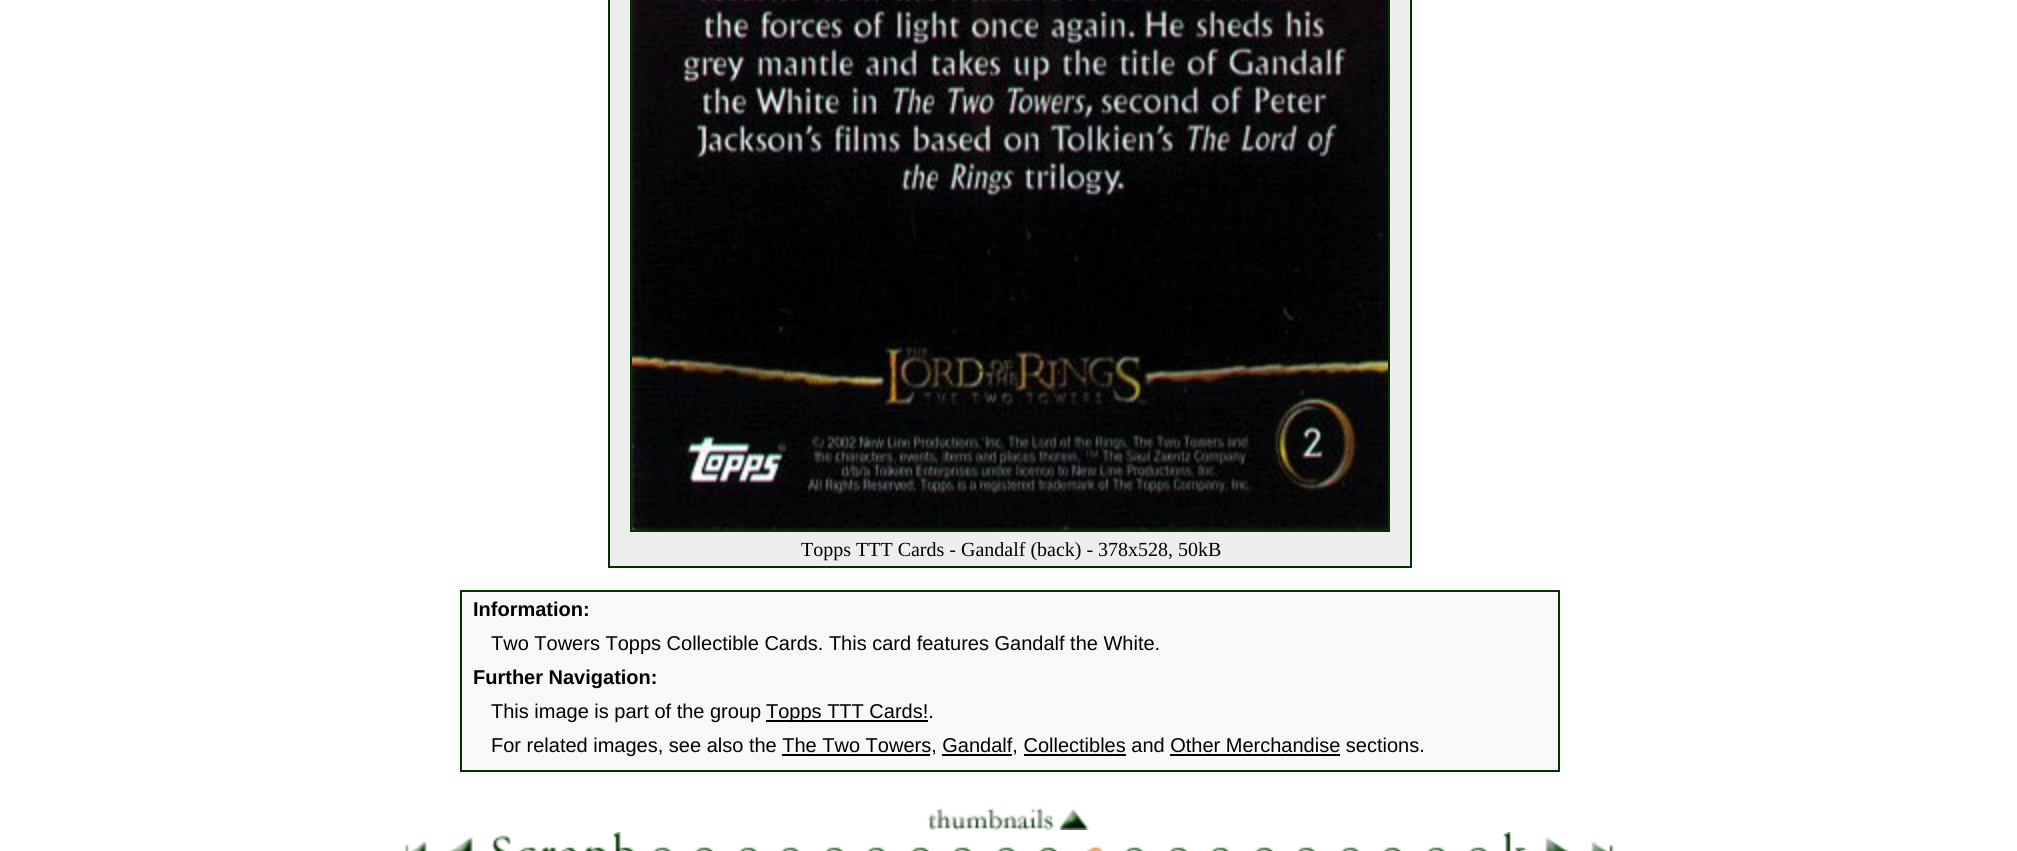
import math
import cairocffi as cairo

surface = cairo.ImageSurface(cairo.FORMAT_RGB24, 2017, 851)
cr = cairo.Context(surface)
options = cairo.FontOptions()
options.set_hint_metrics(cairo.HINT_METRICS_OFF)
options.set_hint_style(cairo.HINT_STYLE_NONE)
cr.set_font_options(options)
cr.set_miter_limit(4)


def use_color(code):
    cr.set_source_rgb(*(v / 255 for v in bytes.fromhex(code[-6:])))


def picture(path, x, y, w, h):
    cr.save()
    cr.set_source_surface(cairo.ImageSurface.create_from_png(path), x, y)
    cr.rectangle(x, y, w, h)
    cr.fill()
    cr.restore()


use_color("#ffffff")
cr.paint()
cr.rectangle(609, -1, 802, 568)
use_color("#003300")
cr.stroke()
use_color("#eeeeee")
cr.rectangle(610, 0, 800, 566)
cr.fill()
cr.rectangle(631, -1, 758, 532)
use_color("#003300")
cr.stroke()
picture("img1.png", 632, 0, 756, 530)
cr.select_font_face("Liberation Serif")
cr.set_font_size(20)
use_color("#000000")
cr.move_to(801, 556)
cr.show_text("Topps TTT Cards - Gandalf (back) - 378x528, 50kB")
use_color("#f8f8f8")
cr.rectangle(461, 591, 1098, 180)
cr.fill_preserve()
use_color("#003300")
cr.stroke()
cr.select_font_face("Liberation Sans", cairo.FONT_SLANT_NORMAL, cairo.FONT_WEIGHT_BOLD)
use_color("#000000")
cr.move_to(473, 616)
cr.show_text("Information:")
cr.select_font_face("Liberation Sans")
cr.move_to(491, 650)
cr.show_text("Two Towers Topps Collectible Cards. This card features Gandalf the White.")
cr.select_font_face("Liberation Sans", cairo.FONT_SLANT_NORMAL, cairo.FONT_WEIGHT_BOLD)
cr.move_to(473, 684)
cr.show_text("Further Navigation:")
cr.select_font_face("Liberation Sans")
cr.move_to(491, 718)
cr.show_text("This image is part of the group")
cr.rectangle(766, 720, 162, 2)
cr.fill()
cr.move_to(766, 718)
cr.show_text("Topps TTT Cards!.")
cr.move_to(491, 752)
cr.show_text("For related images, see also the The Two Towers, Gandalf, Collectibles and Other Merchandise sections.")
cr.rectangle(782, 754, 148, 2)
cr.fill()
cr.rectangle(942, 754, 70, 2)
cr.fill()
cr.rectangle(1024, 754, 102, 2)
cr.fill()
cr.rectangle(1170, 754, 170, 2)
cr.fill()
picture("img2.png", 927, 808, 162, 22)
picture("img3.png", 404, 841, 23, 10)
picture("img4.png", 449, 832, 186, 19)
picture("img5.png", 653, 847, 19, 4)
picture("img5.png", 695, 847, 19, 4)
picture("img5.png", 739, 847, 19, 4)
picture("img5.png", 781, 847, 19, 4)
picture("img5.png", 825, 847, 19, 4)
picture("img5.png", 867, 847, 19, 4)
picture("img5.png", 911, 847, 19, 4)
picture("img5.png", 953, 847, 19, 4)
picture("img5.png", 997, 847, 19, 4)
picture("img5.png", 1039, 847, 19, 4)
picture("img6.png", 1085, 845, 19, 6)
picture("img5.png", 1125, 847, 19, 4)
picture("img5.png", 1169, 847, 19, 4)
picture("img5.png", 1211, 847, 19, 4)
picture("img5.png", 1255, 847, 19, 4)
picture("img5.png", 1297, 847, 19, 4)
picture("img5.png", 1341, 847, 19, 4)
picture("img5.png", 1383, 847, 19, 4)
picture("img5.png", 1427, 847, 19, 4)
picture("img5.png", 1469, 847, 19, 4)
picture("img7.png", 1503, 832, 66, 19)
picture("img8.png", 1591, 841, 23, 10)
surface.write_to_png("result.png")
